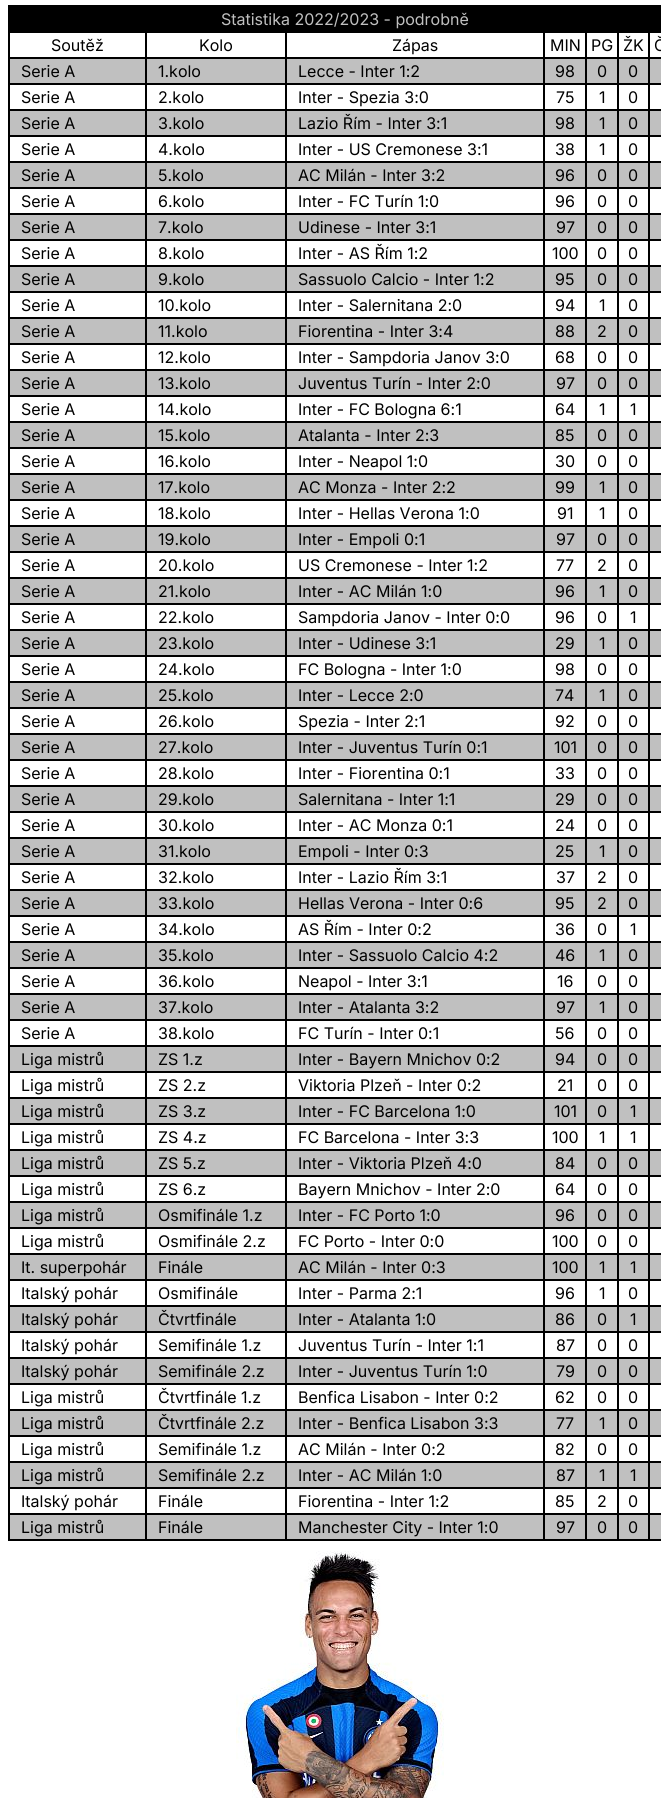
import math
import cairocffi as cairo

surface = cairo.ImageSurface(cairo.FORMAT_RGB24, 661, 1798)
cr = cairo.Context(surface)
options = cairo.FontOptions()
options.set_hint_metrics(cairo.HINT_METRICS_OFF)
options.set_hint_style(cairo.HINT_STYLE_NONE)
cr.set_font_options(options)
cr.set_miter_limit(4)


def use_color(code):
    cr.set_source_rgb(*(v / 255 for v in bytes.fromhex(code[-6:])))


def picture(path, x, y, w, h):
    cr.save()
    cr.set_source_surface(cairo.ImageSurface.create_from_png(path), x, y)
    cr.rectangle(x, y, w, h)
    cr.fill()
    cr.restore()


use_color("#ffffff")
cr.paint()
cr.rectangle(8.5, 5.5, 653, 1535)
use_color("#000000")
cr.set_line_width(1)
cr.stroke()
cr.rectangle(9, 6, 652, 26)
cr.fill()
cr.select_font_face("Inter")
cr.set_font_size(16)
use_color("#c0c0c0")
cr.move_to(221, 25)
cr.show_text("Statistika 2022/2023 - podrobně")
cr.rectangle(9.5, 32.5, 136, 25)
use_color("#000000")
cr.stroke()
cr.move_to(51, 51)
cr.show_text("Soutěž")
cr.rectangle(146.5, 32.5, 139, 25)
cr.stroke()
cr.move_to(199, 51)
cr.show_text("Kolo")
cr.rectangle(286.5, 32.5, 257, 25)
cr.stroke()
cr.move_to(392, 51)
cr.show_text("Zápas")
cr.rectangle(544.5, 32.5, 41, 25)
cr.stroke()
cr.move_to(550, 51)
cr.show_text("MIN")
cr.rectangle(586.5, 32.5, 31, 25)
cr.stroke()
cr.move_to(591, 51)
cr.show_text("PG")
cr.rectangle(618.5, 32.5, 30, 25)
cr.stroke()
cr.move_to(623, 51)
cr.show_text("ŽK")
cr.rectangle(649.5, 32.5, 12, 25)
cr.stroke()
cr.move_to(654, 51)
cr.show_text("Č")
use_color("#c0c0c0")
cr.rectangle(10, 59, 651, 24)
cr.fill()
cr.rectangle(9.5, 58.5, 136, 25)
use_color("#000000")
cr.stroke()
cr.move_to(21, 77)
cr.show_text("Serie A")
cr.rectangle(146.5, 58.5, 139, 25)
cr.stroke()
cr.move_to(158, 77)
cr.show_text("1.kolo")
cr.rectangle(286.5, 58.5, 257, 25)
cr.stroke()
cr.move_to(298, 77)
cr.show_text("Lecce - Inter 1:2")
cr.rectangle(544.5, 58.5, 41, 25)
cr.stroke()
cr.move_to(555, 77)
cr.show_text("98")
cr.rectangle(586.5, 58.5, 31, 25)
cr.stroke()
cr.move_to(597, 77)
cr.show_text("0")
cr.rectangle(618.5, 58.5, 30, 25)
cr.stroke()
cr.move_to(628, 77)
cr.show_text("0")
cr.rectangle(649.5, 58.5, 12, 25)
cr.stroke()
cr.rectangle(9.5, 84.5, 136, 25)
cr.stroke()
cr.move_to(21, 103)
cr.show_text("Serie A")
cr.rectangle(146.5, 84.5, 139, 25)
cr.stroke()
cr.move_to(158, 103)
cr.show_text("2.kolo")
cr.rectangle(286.5, 84.5, 257, 25)
cr.stroke()
cr.move_to(298, 103)
cr.show_text("Inter - Spezia 3:0")
cr.rectangle(544.5, 84.5, 41, 25)
cr.stroke()
cr.move_to(556, 103)
cr.show_text("75")
cr.rectangle(586.5, 84.5, 31, 25)
cr.stroke()
cr.move_to(599, 103)
cr.show_text("1")
cr.rectangle(618.5, 84.5, 30, 25)
cr.stroke()
cr.move_to(628, 103)
cr.show_text("0")
cr.rectangle(649.5, 84.5, 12, 25)
cr.stroke()
use_color("#c0c0c0")
cr.rectangle(10, 111, 651, 24)
cr.fill()
cr.rectangle(9.5, 110.5, 136, 25)
use_color("#000000")
cr.stroke()
cr.move_to(21, 129)
cr.show_text("Serie A")
cr.rectangle(146.5, 110.5, 139, 25)
cr.stroke()
cr.move_to(158, 129)
cr.show_text("3.kolo")
cr.rectangle(286.5, 110.5, 257, 25)
cr.stroke()
cr.move_to(298, 129)
cr.show_text("Lazio Řím - Inter 3:1")
cr.rectangle(544.5, 110.5, 41, 25)
cr.stroke()
cr.move_to(555, 129)
cr.show_text("98")
cr.rectangle(586.5, 110.5, 31, 25)
cr.stroke()
cr.move_to(599, 129)
cr.show_text("1")
cr.rectangle(618.5, 110.5, 30, 25)
cr.stroke()
cr.move_to(628, 129)
cr.show_text("0")
cr.rectangle(649.5, 110.5, 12, 25)
cr.stroke()
cr.rectangle(9.5, 136.5, 136, 25)
cr.stroke()
cr.move_to(21, 155)
cr.show_text("Serie A")
cr.rectangle(146.5, 136.5, 139, 25)
cr.stroke()
cr.move_to(158, 155)
cr.show_text("4.kolo")
cr.rectangle(286.5, 136.5, 257, 25)
cr.stroke()
cr.move_to(298, 155)
cr.show_text("Inter - US Cremonese 3:1")
cr.rectangle(544.5, 136.5, 41, 25)
cr.stroke()
cr.move_to(555, 155)
cr.show_text("38")
cr.rectangle(586.5, 136.5, 31, 25)
cr.stroke()
cr.move_to(599, 155)
cr.show_text("1")
cr.rectangle(618.5, 136.5, 30, 25)
cr.stroke()
cr.move_to(628, 155)
cr.show_text("0")
cr.rectangle(649.5, 136.5, 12, 25)
cr.stroke()
use_color("#c0c0c0")
cr.rectangle(10, 163, 651, 24)
cr.fill()
cr.rectangle(9.5, 162.5, 136, 25)
use_color("#000000")
cr.stroke()
cr.move_to(21, 181)
cr.show_text("Serie A")
cr.rectangle(146.5, 162.5, 139, 25)
cr.stroke()
cr.move_to(158, 181)
cr.show_text("5.kolo")
cr.rectangle(286.5, 162.5, 257, 25)
cr.stroke()
cr.move_to(298, 181)
cr.show_text("AC Milán - Inter 3:2")
cr.rectangle(544.5, 162.5, 41, 25)
cr.stroke()
cr.move_to(555, 181)
cr.show_text("96")
cr.rectangle(586.5, 162.5, 31, 25)
cr.stroke()
cr.move_to(597, 181)
cr.show_text("0")
cr.rectangle(618.5, 162.5, 30, 25)
cr.stroke()
cr.move_to(628, 181)
cr.show_text("0")
cr.rectangle(649.5, 162.5, 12, 25)
cr.stroke()
cr.rectangle(9.5, 188.5, 136, 25)
cr.stroke()
cr.move_to(21, 207)
cr.show_text("Serie A")
cr.rectangle(146.5, 188.5, 139, 25)
cr.stroke()
cr.move_to(158, 207)
cr.show_text("6.kolo")
cr.rectangle(286.5, 188.5, 257, 25)
cr.stroke()
cr.move_to(298, 207)
cr.show_text("Inter - FC Turín 1:0")
cr.rectangle(544.5, 188.5, 41, 25)
cr.stroke()
cr.move_to(555, 207)
cr.show_text("96")
cr.rectangle(586.5, 188.5, 31, 25)
cr.stroke()
cr.move_to(597, 207)
cr.show_text("0")
cr.rectangle(618.5, 188.5, 30, 25)
cr.stroke()
cr.move_to(628, 207)
cr.show_text("0")
cr.rectangle(649.5, 188.5, 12, 25)
cr.stroke()
use_color("#c0c0c0")
cr.rectangle(10, 215, 651, 24)
cr.fill()
cr.rectangle(9.5, 214.5, 136, 25)
use_color("#000000")
cr.stroke()
cr.move_to(21, 233)
cr.show_text("Serie A")
cr.rectangle(146.5, 214.5, 139, 25)
cr.stroke()
cr.move_to(158, 233)
cr.show_text("7.kolo")
cr.rectangle(286.5, 214.5, 257, 25)
cr.stroke()
cr.move_to(298, 233)
cr.show_text("Udinese - Inter 3:1")
cr.rectangle(544.5, 214.5, 41, 25)
cr.stroke()
cr.move_to(556, 233)
cr.show_text("97")
cr.rectangle(586.5, 214.5, 31, 25)
cr.stroke()
cr.move_to(597, 233)
cr.show_text("0")
cr.rectangle(618.5, 214.5, 30, 25)
cr.stroke()
cr.move_to(628, 233)
cr.show_text("0")
cr.rectangle(649.5, 214.5, 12, 25)
cr.stroke()
cr.rectangle(9.5, 240.5, 136, 25)
cr.stroke()
cr.move_to(21, 259)
cr.show_text("Serie A")
cr.rectangle(146.5, 240.5, 139, 25)
cr.stroke()
cr.move_to(158, 259)
cr.show_text("8.kolo")
cr.rectangle(286.5, 240.5, 257, 25)
cr.stroke()
cr.move_to(298, 259)
cr.show_text("Inter - AS Řím 1:2")
cr.rectangle(544.5, 240.5, 41, 25)
cr.stroke()
cr.move_to(552, 259)
cr.show_text("100")
cr.rectangle(586.5, 240.5, 31, 25)
cr.stroke()
cr.move_to(597, 259)
cr.show_text("0")
cr.rectangle(618.5, 240.5, 30, 25)
cr.stroke()
cr.move_to(628, 259)
cr.show_text("0")
cr.rectangle(649.5, 240.5, 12, 25)
cr.stroke()
use_color("#c0c0c0")
cr.rectangle(10, 267, 651, 24)
cr.fill()
cr.rectangle(9.5, 266.5, 136, 25)
use_color("#000000")
cr.stroke()
cr.move_to(21, 285)
cr.show_text("Serie A")
cr.rectangle(146.5, 266.5, 139, 25)
cr.stroke()
cr.move_to(158, 285)
cr.show_text("9.kolo")
cr.rectangle(286.5, 266.5, 257, 25)
cr.stroke()
cr.move_to(298, 285)
cr.show_text("Sassuolo Calcio - Inter 1:2")
cr.rectangle(544.5, 266.5, 41, 25)
cr.stroke()
cr.move_to(555, 285)
cr.show_text("95")
cr.rectangle(586.5, 266.5, 31, 25)
cr.stroke()
cr.move_to(597, 285)
cr.show_text("0")
cr.rectangle(618.5, 266.5, 30, 25)
cr.stroke()
cr.move_to(628, 285)
cr.show_text("0")
cr.rectangle(649.5, 266.5, 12, 25)
cr.stroke()
cr.rectangle(9.5, 292.5, 136, 25)
cr.stroke()
cr.move_to(21, 311)
cr.show_text("Serie A")
cr.rectangle(146.5, 292.5, 139, 25)
cr.stroke()
cr.move_to(158, 311)
cr.show_text("10.kolo")
cr.rectangle(286.5, 292.5, 257, 25)
cr.stroke()
cr.move_to(298, 311)
cr.show_text("Inter - Salernitana 2:0")
cr.rectangle(544.5, 292.5, 41, 25)
cr.stroke()
cr.move_to(555, 311)
cr.show_text("94")
cr.rectangle(586.5, 292.5, 31, 25)
cr.stroke()
cr.move_to(599, 311)
cr.show_text("1")
cr.rectangle(618.5, 292.5, 30, 25)
cr.stroke()
cr.move_to(628, 311)
cr.show_text("0")
cr.rectangle(649.5, 292.5, 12, 25)
cr.stroke()
use_color("#c0c0c0")
cr.rectangle(10, 319, 651, 24)
cr.fill()
cr.rectangle(9.5, 318.5, 136, 25)
use_color("#000000")
cr.stroke()
cr.move_to(21, 337)
cr.show_text("Serie A")
cr.rectangle(146.5, 318.5, 139, 25)
cr.stroke()
cr.move_to(158, 337)
cr.show_text("11.kolo")
cr.rectangle(286.5, 318.5, 257, 25)
cr.stroke()
cr.move_to(298, 337)
cr.show_text("Fiorentina - Inter 3:4")
cr.rectangle(544.5, 318.5, 41, 25)
cr.stroke()
cr.move_to(555, 337)
cr.show_text("88")
cr.rectangle(586.5, 318.5, 31, 25)
cr.stroke()
cr.move_to(597, 337)
cr.show_text("2")
cr.rectangle(618.5, 318.5, 30, 25)
cr.stroke()
cr.move_to(628, 337)
cr.show_text("0")
cr.rectangle(649.5, 318.5, 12, 25)
cr.stroke()
cr.rectangle(9.5, 344.5, 136, 25)
cr.stroke()
cr.move_to(21, 363)
cr.show_text("Serie A")
cr.rectangle(146.5, 344.5, 139, 25)
cr.stroke()
cr.move_to(158, 363)
cr.show_text("12.kolo")
cr.rectangle(286.5, 344.5, 257, 25)
cr.stroke()
cr.move_to(298, 363)
cr.show_text("Inter - Sampdoria Janov 3:0")
cr.rectangle(544.5, 344.5, 41, 25)
cr.stroke()
cr.move_to(555, 363)
cr.show_text("68")
cr.rectangle(586.5, 344.5, 31, 25)
cr.stroke()
cr.move_to(597, 363)
cr.show_text("0")
cr.rectangle(618.5, 344.5, 30, 25)
cr.stroke()
cr.move_to(628, 363)
cr.show_text("0")
cr.rectangle(649.5, 344.5, 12, 25)
cr.stroke()
use_color("#c0c0c0")
cr.rectangle(10, 371, 651, 24)
cr.fill()
cr.rectangle(9.5, 370.5, 136, 25)
use_color("#000000")
cr.stroke()
cr.move_to(21, 389)
cr.show_text("Serie A")
cr.rectangle(146.5, 370.5, 139, 25)
cr.stroke()
cr.move_to(158, 389)
cr.show_text("13.kolo")
cr.rectangle(286.5, 370.5, 257, 25)
cr.stroke()
cr.move_to(298, 389)
cr.show_text("Juventus Turín - Inter 2:0")
cr.rectangle(544.5, 370.5, 41, 25)
cr.stroke()
cr.move_to(556, 389)
cr.show_text("97")
cr.rectangle(586.5, 370.5, 31, 25)
cr.stroke()
cr.move_to(597, 389)
cr.show_text("0")
cr.rectangle(618.5, 370.5, 30, 25)
cr.stroke()
cr.move_to(628, 389)
cr.show_text("0")
cr.rectangle(649.5, 370.5, 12, 25)
cr.stroke()
cr.rectangle(9.5, 396.5, 136, 25)
cr.stroke()
cr.move_to(21, 415)
cr.show_text("Serie A")
cr.rectangle(146.5, 396.5, 139, 25)
cr.stroke()
cr.move_to(158, 415)
cr.show_text("14.kolo")
cr.rectangle(286.5, 396.5, 257, 25)
cr.stroke()
cr.move_to(298, 415)
cr.show_text("Inter - FC Bologna 6:1")
cr.rectangle(544.5, 396.5, 41, 25)
cr.stroke()
cr.move_to(555, 415)
cr.show_text("64")
cr.rectangle(586.5, 396.5, 31, 25)
cr.stroke()
cr.move_to(599, 415)
cr.show_text("1")
cr.rectangle(618.5, 396.5, 30, 25)
cr.stroke()
cr.move_to(630, 415)
cr.show_text("1")
cr.rectangle(649.5, 396.5, 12, 25)
cr.stroke()
use_color("#c0c0c0")
cr.rectangle(10, 423, 651, 24)
cr.fill()
cr.rectangle(9.5, 422.5, 136, 25)
use_color("#000000")
cr.stroke()
cr.move_to(21, 441)
cr.show_text("Serie A")
cr.rectangle(146.5, 422.5, 139, 25)
cr.stroke()
cr.move_to(158, 441)
cr.show_text("15.kolo")
cr.rectangle(286.5, 422.5, 257, 25)
cr.stroke()
cr.move_to(298, 441)
cr.show_text("Atalanta - Inter 2:3")
cr.rectangle(544.5, 422.5, 41, 25)
cr.stroke()
cr.move_to(555, 441)
cr.show_text("85")
cr.rectangle(586.5, 422.5, 31, 25)
cr.stroke()
cr.move_to(597, 441)
cr.show_text("0")
cr.rectangle(618.5, 422.5, 30, 25)
cr.stroke()
cr.move_to(628, 441)
cr.show_text("0")
cr.rectangle(649.5, 422.5, 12, 25)
cr.stroke()
cr.rectangle(9.5, 448.5, 136, 25)
cr.stroke()
cr.move_to(21, 467)
cr.show_text("Serie A")
cr.rectangle(146.5, 448.5, 139, 25)
cr.stroke()
cr.move_to(158, 467)
cr.show_text("16.kolo")
cr.rectangle(286.5, 448.5, 257, 25)
cr.stroke()
cr.move_to(298, 467)
cr.show_text("Inter - Neapol 1:0")
cr.rectangle(544.5, 448.5, 41, 25)
cr.stroke()
cr.move_to(555, 467)
cr.show_text("30")
cr.rectangle(586.5, 448.5, 31, 25)
cr.stroke()
cr.move_to(597, 467)
cr.show_text("0")
cr.rectangle(618.5, 448.5, 30, 25)
cr.stroke()
cr.move_to(628, 467)
cr.show_text("0")
cr.rectangle(649.5, 448.5, 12, 25)
cr.stroke()
use_color("#c0c0c0")
cr.rectangle(10, 475, 651, 24)
cr.fill()
cr.rectangle(9.5, 474.5, 136, 25)
use_color("#000000")
cr.stroke()
cr.move_to(21, 493)
cr.show_text("Serie A")
cr.rectangle(146.5, 474.5, 139, 25)
cr.stroke()
cr.move_to(158, 493)
cr.show_text("17.kolo")
cr.rectangle(286.5, 474.5, 257, 25)
cr.stroke()
cr.move_to(298, 493)
cr.show_text("AC Monza - Inter 2:2")
cr.rectangle(544.5, 474.5, 41, 25)
cr.stroke()
cr.move_to(555, 493)
cr.show_text("99")
cr.rectangle(586.5, 474.5, 31, 25)
cr.stroke()
cr.move_to(599, 493)
cr.show_text("1")
cr.rectangle(618.5, 474.5, 30, 25)
cr.stroke()
cr.move_to(628, 493)
cr.show_text("0")
cr.rectangle(649.5, 474.5, 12, 25)
cr.stroke()
cr.rectangle(9.5, 500.5, 136, 25)
cr.stroke()
cr.move_to(21, 519)
cr.show_text("Serie A")
cr.rectangle(146.5, 500.5, 139, 25)
cr.stroke()
cr.move_to(158, 519)
cr.show_text("18.kolo")
cr.rectangle(286.5, 500.5, 257, 25)
cr.stroke()
cr.move_to(298, 519)
cr.show_text("Inter - Hellas Verona 1:0")
cr.rectangle(544.5, 500.5, 41, 25)
cr.stroke()
cr.move_to(557, 519)
cr.show_text("91")
cr.rectangle(586.5, 500.5, 31, 25)
cr.stroke()
cr.move_to(599, 519)
cr.show_text("1")
cr.rectangle(618.5, 500.5, 30, 25)
cr.stroke()
cr.move_to(628, 519)
cr.show_text("0")
cr.rectangle(649.5, 500.5, 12, 25)
cr.stroke()
use_color("#c0c0c0")
cr.rectangle(10, 527, 651, 24)
cr.fill()
cr.rectangle(9.5, 526.5, 136, 25)
use_color("#000000")
cr.stroke()
cr.move_to(21, 545)
cr.show_text("Serie A")
cr.rectangle(146.5, 526.5, 139, 25)
cr.stroke()
cr.move_to(158, 545)
cr.show_text("19.kolo")
cr.rectangle(286.5, 526.5, 257, 25)
cr.stroke()
cr.move_to(298, 545)
cr.show_text("Inter - Empoli 0:1")
cr.rectangle(544.5, 526.5, 41, 25)
cr.stroke()
cr.move_to(556, 545)
cr.show_text("97")
cr.rectangle(586.5, 526.5, 31, 25)
cr.stroke()
cr.move_to(597, 545)
cr.show_text("0")
cr.rectangle(618.5, 526.5, 30, 25)
cr.stroke()
cr.move_to(628, 545)
cr.show_text("0")
cr.rectangle(649.5, 526.5, 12, 25)
cr.stroke()
cr.rectangle(9.5, 552.5, 136, 25)
cr.stroke()
cr.move_to(21, 571)
cr.show_text("Serie A")
cr.rectangle(146.5, 552.5, 139, 25)
cr.stroke()
cr.move_to(158, 571)
cr.show_text("20.kolo")
cr.rectangle(286.5, 552.5, 257, 25)
cr.stroke()
cr.move_to(298, 571)
cr.show_text("US Cremonese - Inter 1:2")
cr.rectangle(544.5, 552.5, 41, 25)
cr.stroke()
cr.move_to(556, 571)
cr.show_text("77")
cr.rectangle(586.5, 552.5, 31, 25)
cr.stroke()
cr.move_to(597, 571)
cr.show_text("2")
cr.rectangle(618.5, 552.5, 30, 25)
cr.stroke()
cr.move_to(628, 571)
cr.show_text("0")
cr.rectangle(649.5, 552.5, 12, 25)
cr.stroke()
use_color("#c0c0c0")
cr.rectangle(10, 579, 651, 24)
cr.fill()
cr.rectangle(9.5, 578.5, 136, 25)
use_color("#000000")
cr.stroke()
cr.move_to(21, 597)
cr.show_text("Serie A")
cr.rectangle(146.5, 578.5, 139, 25)
cr.stroke()
cr.move_to(158, 597)
cr.show_text("21.kolo")
cr.rectangle(286.5, 578.5, 257, 25)
cr.stroke()
cr.move_to(298, 597)
cr.show_text("Inter - AC Milán 1:0")
cr.rectangle(544.5, 578.5, 41, 25)
cr.stroke()
cr.move_to(555, 597)
cr.show_text("96")
cr.rectangle(586.5, 578.5, 31, 25)
cr.stroke()
cr.move_to(599, 597)
cr.show_text("1")
cr.rectangle(618.5, 578.5, 30, 25)
cr.stroke()
cr.move_to(628, 597)
cr.show_text("0")
cr.rectangle(649.5, 578.5, 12, 25)
cr.stroke()
cr.rectangle(9.5, 604.5, 136, 25)
cr.stroke()
cr.move_to(21, 623)
cr.show_text("Serie A")
cr.rectangle(146.5, 604.5, 139, 25)
cr.stroke()
cr.move_to(158, 623)
cr.show_text("22.kolo")
cr.rectangle(286.5, 604.5, 257, 25)
cr.stroke()
cr.move_to(298, 623)
cr.show_text("Sampdoria Janov - Inter 0:0")
cr.rectangle(544.5, 604.5, 41, 25)
cr.stroke()
cr.move_to(555, 623)
cr.show_text("96")
cr.rectangle(586.5, 604.5, 31, 25)
cr.stroke()
cr.move_to(597, 623)
cr.show_text("0")
cr.rectangle(618.5, 604.5, 30, 25)
cr.stroke()
cr.move_to(630, 623)
cr.show_text("1")
cr.rectangle(649.5, 604.5, 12, 25)
cr.stroke()
use_color("#c0c0c0")
cr.rectangle(10, 631, 651, 24)
cr.fill()
cr.rectangle(9.5, 630.5, 136, 25)
use_color("#000000")
cr.stroke()
cr.move_to(21, 649)
cr.show_text("Serie A")
cr.rectangle(146.5, 630.5, 139, 25)
cr.stroke()
cr.move_to(158, 649)
cr.show_text("23.kolo")
cr.rectangle(286.5, 630.5, 257, 25)
cr.stroke()
cr.move_to(298, 649)
cr.show_text("Inter - Udinese 3:1")
cr.rectangle(544.5, 630.5, 41, 25)
cr.stroke()
cr.move_to(555, 649)
cr.show_text("29")
cr.rectangle(586.5, 630.5, 31, 25)
cr.stroke()
cr.move_to(599, 649)
cr.show_text("1")
cr.rectangle(618.5, 630.5, 30, 25)
cr.stroke()
cr.move_to(628, 649)
cr.show_text("0")
cr.rectangle(649.5, 630.5, 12, 25)
cr.stroke()
cr.rectangle(9.5, 656.5, 136, 25)
cr.stroke()
cr.move_to(21, 675)
cr.show_text("Serie A")
cr.rectangle(146.5, 656.5, 139, 25)
cr.stroke()
cr.move_to(158, 675)
cr.show_text("24.kolo")
cr.rectangle(286.5, 656.5, 257, 25)
cr.stroke()
cr.move_to(298, 675)
cr.show_text("FC Bologna - Inter 1:0")
cr.rectangle(544.5, 656.5, 41, 25)
cr.stroke()
cr.move_to(555, 675)
cr.show_text("98")
cr.rectangle(586.5, 656.5, 31, 25)
cr.stroke()
cr.move_to(597, 675)
cr.show_text("0")
cr.rectangle(618.5, 656.5, 30, 25)
cr.stroke()
cr.move_to(628, 675)
cr.show_text("0")
cr.rectangle(649.5, 656.5, 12, 25)
cr.stroke()
use_color("#c0c0c0")
cr.rectangle(10, 683, 651, 24)
cr.fill()
cr.rectangle(9.5, 682.5, 136, 25)
use_color("#000000")
cr.stroke()
cr.move_to(21, 701)
cr.show_text("Serie A")
cr.rectangle(146.5, 682.5, 139, 25)
cr.stroke()
cr.move_to(158, 701)
cr.show_text("25.kolo")
cr.rectangle(286.5, 682.5, 257, 25)
cr.stroke()
cr.move_to(298, 701)
cr.show_text("Inter - Lecce 2:0")
cr.rectangle(544.5, 682.5, 41, 25)
cr.stroke()
cr.move_to(555, 701)
cr.show_text("74")
cr.rectangle(586.5, 682.5, 31, 25)
cr.stroke()
cr.move_to(599, 701)
cr.show_text("1")
cr.rectangle(618.5, 682.5, 30, 25)
cr.stroke()
cr.move_to(628, 701)
cr.show_text("0")
cr.rectangle(649.5, 682.5, 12, 25)
cr.stroke()
cr.rectangle(9.5, 708.5, 136, 25)
cr.stroke()
cr.move_to(21, 727)
cr.show_text("Serie A")
cr.rectangle(146.5, 708.5, 139, 25)
cr.stroke()
cr.move_to(158, 727)
cr.show_text("26.kolo")
cr.rectangle(286.5, 708.5, 257, 25)
cr.stroke()
cr.move_to(298, 727)
cr.show_text("Spezia - Inter 2:1")
cr.rectangle(544.5, 708.5, 41, 25)
cr.stroke()
cr.move_to(555, 727)
cr.show_text("92")
cr.rectangle(586.5, 708.5, 31, 25)
cr.stroke()
cr.move_to(597, 727)
cr.show_text("0")
cr.rectangle(618.5, 708.5, 30, 25)
cr.stroke()
cr.move_to(628, 727)
cr.show_text("0")
cr.rectangle(649.5, 708.5, 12, 25)
cr.stroke()
use_color("#c0c0c0")
cr.rectangle(10, 735, 651, 24)
cr.fill()
cr.rectangle(9.5, 734.5, 136, 25)
use_color("#000000")
cr.stroke()
cr.move_to(21, 753)
cr.show_text("Serie A")
cr.rectangle(146.5, 734.5, 139, 25)
cr.stroke()
cr.move_to(158, 753)
cr.show_text("27.kolo")
cr.rectangle(286.5, 734.5, 257, 25)
cr.stroke()
cr.move_to(298, 753)
cr.show_text("Inter - Juventus Turín 0:1")
cr.rectangle(544.5, 734.5, 41, 25)
cr.stroke()
cr.move_to(554, 753)
cr.show_text("101")
cr.rectangle(586.5, 734.5, 31, 25)
cr.stroke()
cr.move_to(597, 753)
cr.show_text("0")
cr.rectangle(618.5, 734.5, 30, 25)
cr.stroke()
cr.move_to(628, 753)
cr.show_text("0")
cr.rectangle(649.5, 734.5, 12, 25)
cr.stroke()
cr.rectangle(9.5, 760.5, 136, 25)
cr.stroke()
cr.move_to(21, 779)
cr.show_text("Serie A")
cr.rectangle(146.5, 760.5, 139, 25)
cr.stroke()
cr.move_to(158, 779)
cr.show_text("28.kolo")
cr.rectangle(286.5, 760.5, 257, 25)
cr.stroke()
cr.move_to(298, 779)
cr.show_text("Inter - Fiorentina 0:1")
cr.rectangle(544.5, 760.5, 41, 25)
cr.stroke()
cr.move_to(555, 779)
cr.show_text("33")
cr.rectangle(586.5, 760.5, 31, 25)
cr.stroke()
cr.move_to(597, 779)
cr.show_text("0")
cr.rectangle(618.5, 760.5, 30, 25)
cr.stroke()
cr.move_to(628, 779)
cr.show_text("0")
cr.rectangle(649.5, 760.5, 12, 25)
cr.stroke()
use_color("#c0c0c0")
cr.rectangle(10, 787, 651, 24)
cr.fill()
cr.rectangle(9.5, 786.5, 136, 25)
use_color("#000000")
cr.stroke()
cr.move_to(21, 805)
cr.show_text("Serie A")
cr.rectangle(146.5, 786.5, 139, 25)
cr.stroke()
cr.move_to(158, 805)
cr.show_text("29.kolo")
cr.rectangle(286.5, 786.5, 257, 25)
cr.stroke()
cr.move_to(298, 805)
cr.show_text("Salernitana - Inter 1:1")
cr.rectangle(544.5, 786.5, 41, 25)
cr.stroke()
cr.move_to(555, 805)
cr.show_text("29")
cr.rectangle(586.5, 786.5, 31, 25)
cr.stroke()
cr.move_to(597, 805)
cr.show_text("0")
cr.rectangle(618.5, 786.5, 30, 25)
cr.stroke()
cr.move_to(628, 805)
cr.show_text("0")
cr.rectangle(649.5, 786.5, 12, 25)
cr.stroke()
cr.rectangle(9.5, 812.5, 136, 25)
cr.stroke()
cr.move_to(21, 831)
cr.show_text("Serie A")
cr.rectangle(146.5, 812.5, 139, 25)
cr.stroke()
cr.move_to(158, 831)
cr.show_text("30.kolo")
cr.rectangle(286.5, 812.5, 257, 25)
cr.stroke()
cr.move_to(298, 831)
cr.show_text("Inter - AC Monza 0:1")
cr.rectangle(544.5, 812.5, 41, 25)
cr.stroke()
cr.move_to(555, 831)
cr.show_text("24")
cr.rectangle(586.5, 812.5, 31, 25)
cr.stroke()
cr.move_to(597, 831)
cr.show_text("0")
cr.rectangle(618.5, 812.5, 30, 25)
cr.stroke()
cr.move_to(628, 831)
cr.show_text("0")
cr.rectangle(649.5, 812.5, 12, 25)
cr.stroke()
use_color("#c0c0c0")
cr.rectangle(10, 839, 651, 24)
cr.fill()
cr.rectangle(9.5, 838.5, 136, 25)
use_color("#000000")
cr.stroke()
cr.move_to(21, 857)
cr.show_text("Serie A")
cr.rectangle(146.5, 838.5, 139, 25)
cr.stroke()
cr.move_to(158, 857)
cr.show_text("31.kolo")
cr.rectangle(286.5, 838.5, 257, 25)
cr.stroke()
cr.move_to(298, 857)
cr.show_text("Empoli - Inter 0:3")
cr.rectangle(544.5, 838.5, 41, 25)
cr.stroke()
cr.move_to(555, 857)
cr.show_text("25")
cr.rectangle(586.5, 838.5, 31, 25)
cr.stroke()
cr.move_to(599, 857)
cr.show_text("1")
cr.rectangle(618.5, 838.5, 30, 25)
cr.stroke()
cr.move_to(628, 857)
cr.show_text("0")
cr.rectangle(649.5, 838.5, 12, 25)
cr.stroke()
cr.rectangle(9.5, 864.5, 136, 25)
cr.stroke()
cr.move_to(21, 883)
cr.show_text("Serie A")
cr.rectangle(146.5, 864.5, 139, 25)
cr.stroke()
cr.move_to(158, 883)
cr.show_text("32.kolo")
cr.rectangle(286.5, 864.5, 257, 25)
cr.stroke()
cr.move_to(298, 883)
cr.show_text("Inter - Lazio Řím 3:1")
cr.rectangle(544.5, 864.5, 41, 25)
cr.stroke()
cr.move_to(556, 883)
cr.show_text("37")
cr.rectangle(586.5, 864.5, 31, 25)
cr.stroke()
cr.move_to(597, 883)
cr.show_text("2")
cr.rectangle(618.5, 864.5, 30, 25)
cr.stroke()
cr.move_to(628, 883)
cr.show_text("0")
cr.rectangle(649.5, 864.5, 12, 25)
cr.stroke()
use_color("#c0c0c0")
cr.rectangle(10, 891, 651, 24)
cr.fill()
cr.rectangle(9.5, 890.5, 136, 25)
use_color("#000000")
cr.stroke()
cr.move_to(21, 909)
cr.show_text("Serie A")
cr.rectangle(146.5, 890.5, 139, 25)
cr.stroke()
cr.move_to(158, 909)
cr.show_text("33.kolo")
cr.rectangle(286.5, 890.5, 257, 25)
cr.stroke()
cr.move_to(298, 909)
cr.show_text("Hellas Verona - Inter 0:6")
cr.rectangle(544.5, 890.5, 41, 25)
cr.stroke()
cr.move_to(555, 909)
cr.show_text("95")
cr.rectangle(586.5, 890.5, 31, 25)
cr.stroke()
cr.move_to(597, 909)
cr.show_text("2")
cr.rectangle(618.5, 890.5, 30, 25)
cr.stroke()
cr.move_to(628, 909)
cr.show_text("0")
cr.rectangle(649.5, 890.5, 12, 25)
cr.stroke()
cr.rectangle(9.5, 916.5, 136, 25)
cr.stroke()
cr.move_to(21, 935)
cr.show_text("Serie A")
cr.rectangle(146.5, 916.5, 139, 25)
cr.stroke()
cr.move_to(158, 935)
cr.show_text("34.kolo")
cr.rectangle(286.5, 916.5, 257, 25)
cr.stroke()
cr.move_to(298, 935)
cr.show_text("AS Řím - Inter 0:2")
cr.rectangle(544.5, 916.5, 41, 25)
cr.stroke()
cr.move_to(555, 935)
cr.show_text("36")
cr.rectangle(586.5, 916.5, 31, 25)
cr.stroke()
cr.move_to(597, 935)
cr.show_text("0")
cr.rectangle(618.5, 916.5, 30, 25)
cr.stroke()
cr.move_to(630, 935)
cr.show_text("1")
cr.rectangle(649.5, 916.5, 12, 25)
cr.stroke()
use_color("#c0c0c0")
cr.rectangle(10, 943, 651, 24)
cr.fill()
cr.rectangle(9.5, 942.5, 136, 25)
use_color("#000000")
cr.stroke()
cr.move_to(21, 961)
cr.show_text("Serie A")
cr.rectangle(146.5, 942.5, 139, 25)
cr.stroke()
cr.move_to(158, 961)
cr.show_text("35.kolo")
cr.rectangle(286.5, 942.5, 257, 25)
cr.stroke()
cr.move_to(298, 961)
cr.show_text("Inter - Sassuolo Calcio 4:2")
cr.rectangle(544.5, 942.5, 41, 25)
cr.stroke()
cr.move_to(555, 961)
cr.show_text("46")
cr.rectangle(586.5, 942.5, 31, 25)
cr.stroke()
cr.move_to(599, 961)
cr.show_text("1")
cr.rectangle(618.5, 942.5, 30, 25)
cr.stroke()
cr.move_to(628, 961)
cr.show_text("0")
cr.rectangle(649.5, 942.5, 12, 25)
cr.stroke()
cr.rectangle(9.5, 968.5, 136, 25)
cr.stroke()
cr.move_to(21, 987)
cr.show_text("Serie A")
cr.rectangle(146.5, 968.5, 139, 25)
cr.stroke()
cr.move_to(158, 987)
cr.show_text("36.kolo")
cr.rectangle(286.5, 968.5, 257, 25)
cr.stroke()
cr.move_to(298, 987)
cr.show_text("Neapol - Inter 3:1")
cr.rectangle(544.5, 968.5, 41, 25)
cr.stroke()
cr.move_to(557, 987)
cr.show_text("16")
cr.rectangle(586.5, 968.5, 31, 25)
cr.stroke()
cr.move_to(597, 987)
cr.show_text("0")
cr.rectangle(618.5, 968.5, 30, 25)
cr.stroke()
cr.move_to(628, 987)
cr.show_text("0")
cr.rectangle(649.5, 968.5, 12, 25)
cr.stroke()
use_color("#c0c0c0")
cr.rectangle(10, 995, 651, 24)
cr.fill()
cr.rectangle(9.5, 994.5, 136, 25)
use_color("#000000")
cr.stroke()
cr.move_to(21, 1013)
cr.show_text("Serie A")
cr.rectangle(146.5, 994.5, 139, 25)
cr.stroke()
cr.move_to(158, 1013)
cr.show_text("37.kolo")
cr.rectangle(286.5, 994.5, 257, 25)
cr.stroke()
cr.move_to(298, 1013)
cr.show_text("Inter - Atalanta 3:2")
cr.rectangle(544.5, 994.5, 41, 25)
cr.stroke()
cr.move_to(556, 1013)
cr.show_text("97")
cr.rectangle(586.5, 994.5, 31, 25)
cr.stroke()
cr.move_to(599, 1013)
cr.show_text("1")
cr.rectangle(618.5, 994.5, 30, 25)
cr.stroke()
cr.move_to(628, 1013)
cr.show_text("0")
cr.rectangle(649.5, 994.5, 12, 25)
cr.stroke()
cr.rectangle(9.5, 1020.5, 136, 25)
cr.stroke()
cr.move_to(21, 1039)
cr.show_text("Serie A")
cr.rectangle(146.5, 1020.5, 139, 25)
cr.stroke()
cr.move_to(158, 1039)
cr.show_text("38.kolo")
cr.rectangle(286.5, 1020.5, 257, 25)
cr.stroke()
cr.move_to(298, 1039)
cr.show_text("FC Turín - Inter 0:1")
cr.rectangle(544.5, 1020.5, 41, 25)
cr.stroke()
cr.move_to(555, 1039)
cr.show_text("56")
cr.rectangle(586.5, 1020.5, 31, 25)
cr.stroke()
cr.move_to(597, 1039)
cr.show_text("0")
cr.rectangle(618.5, 1020.5, 30, 25)
cr.stroke()
cr.move_to(628, 1039)
cr.show_text("0")
cr.rectangle(649.5, 1020.5, 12, 25)
cr.stroke()
use_color("#c0c0c0")
cr.rectangle(10, 1047, 651, 24)
cr.fill()
cr.rectangle(9.5, 1046.5, 136, 25)
use_color("#000000")
cr.stroke()
cr.move_to(21, 1065)
cr.show_text("Liga mistrů")
cr.rectangle(146.5, 1046.5, 139, 25)
cr.stroke()
cr.move_to(158, 1065)
cr.show_text("ZS 1.z")
cr.rectangle(286.5, 1046.5, 257, 25)
cr.stroke()
cr.move_to(298, 1065)
cr.show_text("Inter - Bayern Mnichov 0:2")
cr.rectangle(544.5, 1046.5, 41, 25)
cr.stroke()
cr.move_to(555, 1065)
cr.show_text("94")
cr.rectangle(586.5, 1046.5, 31, 25)
cr.stroke()
cr.move_to(597, 1065)
cr.show_text("0")
cr.rectangle(618.5, 1046.5, 30, 25)
cr.stroke()
cr.move_to(628, 1065)
cr.show_text("0")
cr.rectangle(649.5, 1046.5, 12, 25)
cr.stroke()
cr.rectangle(9.5, 1072.5, 136, 25)
cr.stroke()
cr.move_to(21, 1091)
cr.show_text("Liga mistrů")
cr.rectangle(146.5, 1072.5, 139, 25)
cr.stroke()
cr.move_to(158, 1091)
cr.show_text("ZS 2.z")
cr.rectangle(286.5, 1072.5, 257, 25)
cr.stroke()
cr.move_to(298, 1091)
cr.show_text("Viktoria Plzeň - Inter 0:2")
cr.rectangle(544.5, 1072.5, 41, 25)
cr.stroke()
cr.move_to(557, 1091)
cr.show_text("21")
cr.rectangle(586.5, 1072.5, 31, 25)
cr.stroke()
cr.move_to(597, 1091)
cr.show_text("0")
cr.rectangle(618.5, 1072.5, 30, 25)
cr.stroke()
cr.move_to(628, 1091)
cr.show_text("0")
cr.rectangle(649.5, 1072.5, 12, 25)
cr.stroke()
use_color("#c0c0c0")
cr.rectangle(10, 1099, 651, 24)
cr.fill()
cr.rectangle(9.5, 1098.5, 136, 25)
use_color("#000000")
cr.stroke()
cr.move_to(21, 1117)
cr.show_text("Liga mistrů")
cr.rectangle(146.5, 1098.5, 139, 25)
cr.stroke()
cr.move_to(158, 1117)
cr.show_text("ZS 3.z")
cr.rectangle(286.5, 1098.5, 257, 25)
cr.stroke()
cr.move_to(298, 1117)
cr.show_text("Inter - FC Barcelona 1:0")
cr.rectangle(544.5, 1098.5, 41, 25)
cr.stroke()
cr.move_to(554, 1117)
cr.show_text("101")
cr.rectangle(586.5, 1098.5, 31, 25)
cr.stroke()
cr.move_to(597, 1117)
cr.show_text("0")
cr.rectangle(618.5, 1098.5, 30, 25)
cr.stroke()
cr.move_to(630, 1117)
cr.show_text("1")
cr.rectangle(649.5, 1098.5, 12, 25)
cr.stroke()
cr.rectangle(9.5, 1124.5, 136, 25)
cr.stroke()
cr.move_to(21, 1143)
cr.show_text("Liga mistrů")
cr.rectangle(146.5, 1124.5, 139, 25)
cr.stroke()
cr.move_to(158, 1143)
cr.show_text("ZS 4.z")
cr.rectangle(286.5, 1124.5, 257, 25)
cr.stroke()
cr.move_to(298, 1143)
cr.show_text("FC Barcelona - Inter 3:3")
cr.rectangle(544.5, 1124.5, 41, 25)
cr.stroke()
cr.move_to(552, 1143)
cr.show_text("100")
cr.rectangle(586.5, 1124.5, 31, 25)
cr.stroke()
cr.move_to(599, 1143)
cr.show_text("1")
cr.rectangle(618.5, 1124.5, 30, 25)
cr.stroke()
cr.move_to(630, 1143)
cr.show_text("1")
cr.rectangle(649.5, 1124.5, 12, 25)
cr.stroke()
use_color("#c0c0c0")
cr.rectangle(10, 1151, 651, 24)
cr.fill()
cr.rectangle(9.5, 1150.5, 136, 25)
use_color("#000000")
cr.stroke()
cr.move_to(21, 1169)
cr.show_text("Liga mistrů")
cr.rectangle(146.5, 1150.5, 139, 25)
cr.stroke()
cr.move_to(158, 1169)
cr.show_text("ZS 5.z")
cr.rectangle(286.5, 1150.5, 257, 25)
cr.stroke()
cr.move_to(298, 1169)
cr.show_text("Inter - Viktoria Plzeň 4:0")
cr.rectangle(544.5, 1150.5, 41, 25)
cr.stroke()
cr.move_to(555, 1169)
cr.show_text("84")
cr.rectangle(586.5, 1150.5, 31, 25)
cr.stroke()
cr.move_to(597, 1169)
cr.show_text("0")
cr.rectangle(618.5, 1150.5, 30, 25)
cr.stroke()
cr.move_to(628, 1169)
cr.show_text("0")
cr.rectangle(649.5, 1150.5, 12, 25)
cr.stroke()
cr.rectangle(9.5, 1176.5, 136, 25)
cr.stroke()
cr.move_to(21, 1195)
cr.show_text("Liga mistrů")
cr.rectangle(146.5, 1176.5, 139, 25)
cr.stroke()
cr.move_to(158, 1195)
cr.show_text("ZS 6.z")
cr.rectangle(286.5, 1176.5, 257, 25)
cr.stroke()
cr.move_to(298, 1195)
cr.show_text("Bayern Mnichov - Inter 2:0")
cr.rectangle(544.5, 1176.5, 41, 25)
cr.stroke()
cr.move_to(555, 1195)
cr.show_text("64")
cr.rectangle(586.5, 1176.5, 31, 25)
cr.stroke()
cr.move_to(597, 1195)
cr.show_text("0")
cr.rectangle(618.5, 1176.5, 30, 25)
cr.stroke()
cr.move_to(628, 1195)
cr.show_text("0")
cr.rectangle(649.5, 1176.5, 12, 25)
cr.stroke()
use_color("#c0c0c0")
cr.rectangle(10, 1203, 651, 24)
cr.fill()
cr.rectangle(9.5, 1202.5, 136, 25)
use_color("#000000")
cr.stroke()
cr.move_to(21, 1221)
cr.show_text("Liga mistrů")
cr.rectangle(146.5, 1202.5, 139, 25)
cr.stroke()
cr.move_to(158, 1221)
cr.show_text("Osmifinále 1.z")
cr.rectangle(286.5, 1202.5, 257, 25)
cr.stroke()
cr.move_to(298, 1221)
cr.show_text("Inter - FC Porto 1:0")
cr.rectangle(544.5, 1202.5, 41, 25)
cr.stroke()
cr.move_to(555, 1221)
cr.show_text("96")
cr.rectangle(586.5, 1202.5, 31, 25)
cr.stroke()
cr.move_to(597, 1221)
cr.show_text("0")
cr.rectangle(618.5, 1202.5, 30, 25)
cr.stroke()
cr.move_to(628, 1221)
cr.show_text("0")
cr.rectangle(649.5, 1202.5, 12, 25)
cr.stroke()
cr.rectangle(9.5, 1228.5, 136, 25)
cr.stroke()
cr.move_to(21, 1247)
cr.show_text("Liga mistrů")
cr.rectangle(146.5, 1228.5, 139, 25)
cr.stroke()
cr.move_to(158, 1247)
cr.show_text("Osmifinále 2.z")
cr.rectangle(286.5, 1228.5, 257, 25)
cr.stroke()
cr.move_to(298, 1247)
cr.show_text("FC Porto - Inter 0:0")
cr.rectangle(544.5, 1228.5, 41, 25)
cr.stroke()
cr.move_to(552, 1247)
cr.show_text("100")
cr.rectangle(586.5, 1228.5, 31, 25)
cr.stroke()
cr.move_to(597, 1247)
cr.show_text("0")
cr.rectangle(618.5, 1228.5, 30, 25)
cr.stroke()
cr.move_to(628, 1247)
cr.show_text("0")
cr.rectangle(649.5, 1228.5, 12, 25)
cr.stroke()
use_color("#c0c0c0")
cr.rectangle(10, 1255, 651, 24)
cr.fill()
cr.rectangle(9.5, 1254.5, 136, 25)
use_color("#000000")
cr.stroke()
cr.move_to(21, 1273)
cr.show_text("It. superpohár")
cr.rectangle(146.5, 1254.5, 139, 25)
cr.stroke()
cr.move_to(158, 1273)
cr.show_text("Finále")
cr.rectangle(286.5, 1254.5, 257, 25)
cr.stroke()
cr.move_to(298, 1273)
cr.show_text("AC Milán - Inter 0:3")
cr.rectangle(544.5, 1254.5, 41, 25)
cr.stroke()
cr.move_to(552, 1273)
cr.show_text("100")
cr.rectangle(586.5, 1254.5, 31, 25)
cr.stroke()
cr.move_to(599, 1273)
cr.show_text("1")
cr.rectangle(618.5, 1254.5, 30, 25)
cr.stroke()
cr.move_to(630, 1273)
cr.show_text("1")
cr.rectangle(649.5, 1254.5, 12, 25)
cr.stroke()
cr.rectangle(9.5, 1280.5, 136, 25)
cr.stroke()
cr.move_to(21, 1299)
cr.show_text("Italský pohár")
cr.rectangle(146.5, 1280.5, 139, 25)
cr.stroke()
cr.move_to(158, 1299)
cr.show_text("Osmifinále")
cr.rectangle(286.5, 1280.5, 257, 25)
cr.stroke()
cr.move_to(298, 1299)
cr.show_text("Inter - Parma 2:1")
cr.rectangle(544.5, 1280.5, 41, 25)
cr.stroke()
cr.move_to(555, 1299)
cr.show_text("96")
cr.rectangle(586.5, 1280.5, 31, 25)
cr.stroke()
cr.move_to(599, 1299)
cr.show_text("1")
cr.rectangle(618.5, 1280.5, 30, 25)
cr.stroke()
cr.move_to(628, 1299)
cr.show_text("0")
cr.rectangle(649.5, 1280.5, 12, 25)
cr.stroke()
use_color("#c0c0c0")
cr.rectangle(10, 1307, 651, 24)
cr.fill()
cr.rectangle(9.5, 1306.5, 136, 25)
use_color("#000000")
cr.stroke()
cr.move_to(21, 1325)
cr.show_text("Italský pohár")
cr.rectangle(146.5, 1306.5, 139, 25)
cr.stroke()
cr.move_to(158, 1325)
cr.show_text("Čtvrtfinále")
cr.rectangle(286.5, 1306.5, 257, 25)
cr.stroke()
cr.move_to(298, 1325)
cr.show_text("Inter - Atalanta 1:0")
cr.rectangle(544.5, 1306.5, 41, 25)
cr.stroke()
cr.move_to(555, 1325)
cr.show_text("86")
cr.rectangle(586.5, 1306.5, 31, 25)
cr.stroke()
cr.move_to(597, 1325)
cr.show_text("0")
cr.rectangle(618.5, 1306.5, 30, 25)
cr.stroke()
cr.move_to(630, 1325)
cr.show_text("1")
cr.rectangle(649.5, 1306.5, 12, 25)
cr.stroke()
cr.rectangle(9.5, 1332.5, 136, 25)
cr.stroke()
cr.move_to(21, 1351)
cr.show_text("Italský pohár")
cr.rectangle(146.5, 1332.5, 139, 25)
cr.stroke()
cr.move_to(158, 1351)
cr.show_text("Semifinále 1.z")
cr.rectangle(286.5, 1332.5, 257, 25)
cr.stroke()
cr.move_to(298, 1351)
cr.show_text("Juventus Turín - Inter 1:1")
cr.rectangle(544.5, 1332.5, 41, 25)
cr.stroke()
cr.move_to(556, 1351)
cr.show_text("87")
cr.rectangle(586.5, 1332.5, 31, 25)
cr.stroke()
cr.move_to(597, 1351)
cr.show_text("0")
cr.rectangle(618.5, 1332.5, 30, 25)
cr.stroke()
cr.move_to(628, 1351)
cr.show_text("0")
cr.rectangle(649.5, 1332.5, 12, 25)
cr.stroke()
use_color("#c0c0c0")
cr.rectangle(10, 1359, 651, 24)
cr.fill()
cr.rectangle(9.5, 1358.5, 136, 25)
use_color("#000000")
cr.stroke()
cr.move_to(21, 1377)
cr.show_text("Italský pohár")
cr.rectangle(146.5, 1358.5, 139, 25)
cr.stroke()
cr.move_to(158, 1377)
cr.show_text("Semifinále 2.z")
cr.rectangle(286.5, 1358.5, 257, 25)
cr.stroke()
cr.move_to(298, 1377)
cr.show_text("Inter - Juventus Turín 1:0")
cr.rectangle(544.5, 1358.5, 41, 25)
cr.stroke()
cr.move_to(556, 1377)
cr.show_text("79")
cr.rectangle(586.5, 1358.5, 31, 25)
cr.stroke()
cr.move_to(597, 1377)
cr.show_text("0")
cr.rectangle(618.5, 1358.5, 30, 25)
cr.stroke()
cr.move_to(628, 1377)
cr.show_text("0")
cr.rectangle(649.5, 1358.5, 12, 25)
cr.stroke()
cr.rectangle(9.5, 1384.5, 136, 25)
cr.stroke()
cr.move_to(21, 1403)
cr.show_text("Liga mistrů")
cr.rectangle(146.5, 1384.5, 139, 25)
cr.stroke()
cr.move_to(158, 1403)
cr.show_text("Čtvrtfinále 1.z")
cr.rectangle(286.5, 1384.5, 257, 25)
cr.stroke()
cr.move_to(298, 1403)
cr.show_text("Benfica Lisabon - Inter 0:2")
cr.rectangle(544.5, 1384.5, 41, 25)
cr.stroke()
cr.move_to(555, 1403)
cr.show_text("62")
cr.rectangle(586.5, 1384.5, 31, 25)
cr.stroke()
cr.move_to(597, 1403)
cr.show_text("0")
cr.rectangle(618.5, 1384.5, 30, 25)
cr.stroke()
cr.move_to(628, 1403)
cr.show_text("0")
cr.rectangle(649.5, 1384.5, 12, 25)
cr.stroke()
use_color("#c0c0c0")
cr.rectangle(10, 1411, 651, 24)
cr.fill()
cr.rectangle(9.5, 1410.5, 136, 25)
use_color("#000000")
cr.stroke()
cr.move_to(21, 1429)
cr.show_text("Liga mistrů")
cr.rectangle(146.5, 1410.5, 139, 25)
cr.stroke()
cr.move_to(158, 1429)
cr.show_text("Čtvrtfinále 2.z")
cr.rectangle(286.5, 1410.5, 257, 25)
cr.stroke()
cr.move_to(298, 1429)
cr.show_text("Inter - Benfica Lisabon 3:3")
cr.rectangle(544.5, 1410.5, 41, 25)
cr.stroke()
cr.move_to(556, 1429)
cr.show_text("77")
cr.rectangle(586.5, 1410.5, 31, 25)
cr.stroke()
cr.move_to(599, 1429)
cr.show_text("1")
cr.rectangle(618.5, 1410.5, 30, 25)
cr.stroke()
cr.move_to(628, 1429)
cr.show_text("0")
cr.rectangle(649.5, 1410.5, 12, 25)
cr.stroke()
cr.rectangle(9.5, 1436.5, 136, 25)
cr.stroke()
cr.move_to(21, 1455)
cr.show_text("Liga mistrů")
cr.rectangle(146.5, 1436.5, 139, 25)
cr.stroke()
cr.move_to(158, 1455)
cr.show_text("Semifinále 1.z")
cr.rectangle(286.5, 1436.5, 257, 25)
cr.stroke()
cr.move_to(298, 1455)
cr.show_text("AC Milán - Inter 0:2")
cr.rectangle(544.5, 1436.5, 41, 25)
cr.stroke()
cr.move_to(555, 1455)
cr.show_text("82")
cr.rectangle(586.5, 1436.5, 31, 25)
cr.stroke()
cr.move_to(597, 1455)
cr.show_text("0")
cr.rectangle(618.5, 1436.5, 30, 25)
cr.stroke()
cr.move_to(628, 1455)
cr.show_text("0")
cr.rectangle(649.5, 1436.5, 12, 25)
cr.stroke()
use_color("#c0c0c0")
cr.rectangle(10, 1463, 651, 24)
cr.fill()
cr.rectangle(9.5, 1462.5, 136, 25)
use_color("#000000")
cr.stroke()
cr.move_to(21, 1481)
cr.show_text("Liga mistrů")
cr.rectangle(146.5, 1462.5, 139, 25)
cr.stroke()
cr.move_to(158, 1481)
cr.show_text("Semifinále 2.z")
cr.rectangle(286.5, 1462.5, 257, 25)
cr.stroke()
cr.move_to(298, 1481)
cr.show_text("Inter - AC Milán 1:0")
cr.rectangle(544.5, 1462.5, 41, 25)
cr.stroke()
cr.move_to(556, 1481)
cr.show_text("87")
cr.rectangle(586.5, 1462.5, 31, 25)
cr.stroke()
cr.move_to(599, 1481)
cr.show_text("1")
cr.rectangle(618.5, 1462.5, 30, 25)
cr.stroke()
cr.move_to(630, 1481)
cr.show_text("1")
cr.rectangle(649.5, 1462.5, 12, 25)
cr.stroke()
cr.rectangle(9.5, 1488.5, 136, 25)
cr.stroke()
cr.move_to(21, 1507)
cr.show_text("Italský pohár")
cr.rectangle(146.5, 1488.5, 139, 25)
cr.stroke()
cr.move_to(158, 1507)
cr.show_text("Finále")
cr.rectangle(286.5, 1488.5, 257, 25)
cr.stroke()
cr.move_to(298, 1507)
cr.show_text("Fiorentina - Inter 1:2")
cr.rectangle(544.5, 1488.5, 41, 25)
cr.stroke()
cr.move_to(555, 1507)
cr.show_text("85")
cr.rectangle(586.5, 1488.5, 31, 25)
cr.stroke()
cr.move_to(597, 1507)
cr.show_text("2")
cr.rectangle(618.5, 1488.5, 30, 25)
cr.stroke()
cr.move_to(628, 1507)
cr.show_text("0")
cr.rectangle(649.5, 1488.5, 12, 25)
cr.stroke()
use_color("#c0c0c0")
cr.rectangle(10, 1515, 651, 24)
cr.fill()
cr.rectangle(9.5, 1514.5, 136, 25)
use_color("#000000")
cr.stroke()
cr.move_to(21, 1533)
cr.show_text("Liga mistrů")
cr.rectangle(146.5, 1514.5, 139, 25)
cr.stroke()
cr.move_to(158, 1533)
cr.show_text("Finále")
cr.rectangle(286.5, 1514.5, 257, 25)
cr.stroke()
cr.move_to(298, 1533)
cr.show_text("Manchester City - Inter 1:0")
cr.rectangle(544.5, 1514.5, 41, 25)
cr.stroke()
cr.move_to(556, 1533)
cr.show_text("97")
cr.rectangle(586.5, 1514.5, 31, 25)
cr.stroke()
cr.move_to(597, 1533)
cr.show_text("0")
cr.rectangle(618.5, 1514.5, 30, 25)
cr.stroke()
cr.move_to(628, 1533)
cr.show_text("0")
cr.rectangle(649.5, 1514.5, 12, 25)
cr.stroke()
picture("img1.png", 236, 1551, 208, 247)
surface.write_to_png("result.png")
